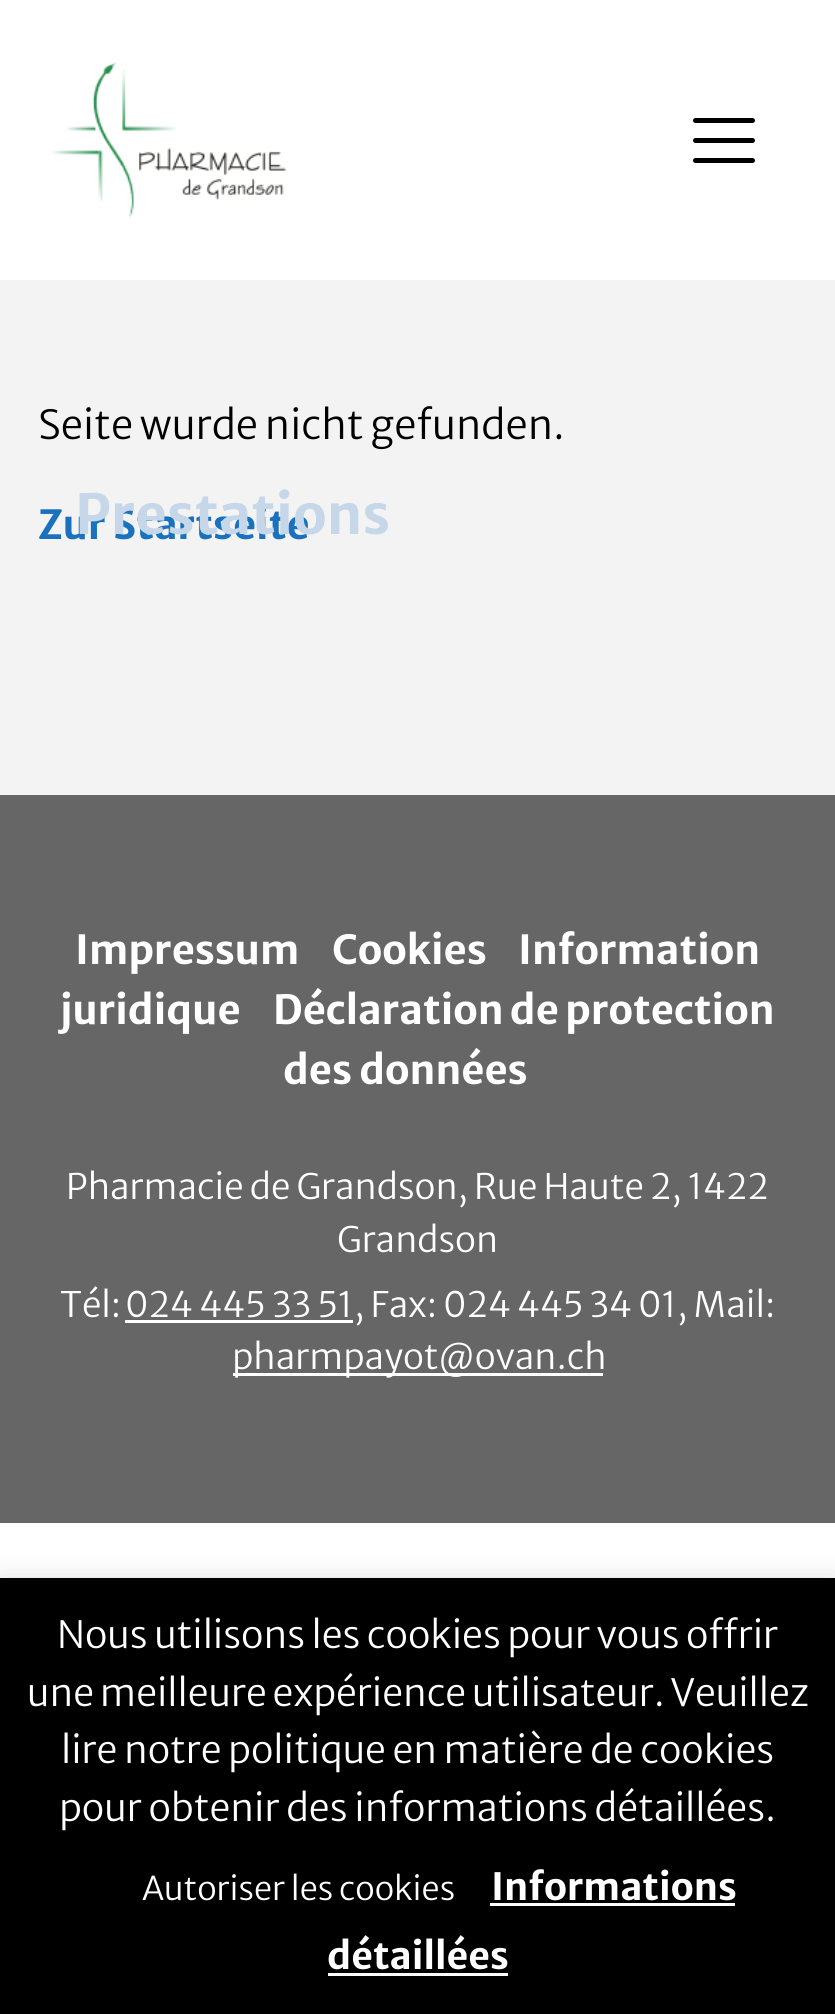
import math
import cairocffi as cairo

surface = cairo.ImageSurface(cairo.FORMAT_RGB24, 835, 2014)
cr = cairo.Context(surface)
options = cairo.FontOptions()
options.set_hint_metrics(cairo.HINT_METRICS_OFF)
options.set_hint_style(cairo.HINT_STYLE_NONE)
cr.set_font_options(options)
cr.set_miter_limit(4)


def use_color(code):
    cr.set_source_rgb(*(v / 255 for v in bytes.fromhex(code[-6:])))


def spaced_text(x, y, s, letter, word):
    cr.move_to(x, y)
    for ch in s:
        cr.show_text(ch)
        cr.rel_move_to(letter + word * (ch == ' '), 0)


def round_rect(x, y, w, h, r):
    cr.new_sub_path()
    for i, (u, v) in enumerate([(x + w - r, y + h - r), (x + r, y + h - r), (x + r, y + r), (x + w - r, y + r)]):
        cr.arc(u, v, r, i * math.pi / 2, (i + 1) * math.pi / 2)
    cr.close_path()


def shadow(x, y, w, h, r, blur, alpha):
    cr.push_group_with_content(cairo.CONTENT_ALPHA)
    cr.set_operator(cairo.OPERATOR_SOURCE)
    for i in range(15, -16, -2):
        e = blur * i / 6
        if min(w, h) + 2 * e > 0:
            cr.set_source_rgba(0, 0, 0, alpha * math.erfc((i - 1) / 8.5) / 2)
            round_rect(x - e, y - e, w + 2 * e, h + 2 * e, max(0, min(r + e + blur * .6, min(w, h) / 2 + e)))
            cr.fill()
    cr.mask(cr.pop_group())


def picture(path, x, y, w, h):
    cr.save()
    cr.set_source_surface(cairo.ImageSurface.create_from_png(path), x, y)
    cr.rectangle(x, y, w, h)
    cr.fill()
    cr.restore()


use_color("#ffffff")
cr.paint()
use_color("#f3f3f3")
cr.rectangle(0, 280, 835, 515)
cr.fill()
cr.select_font_face("Merriweather Sans Light")
cr.set_font_size(40)
use_color("#000000")
spaced_text(38, 439, "Seite wurde nicht gefunden.", 0, -0.5)
cr.select_font_face("Merriweather Sans", cairo.FONT_SLANT_NORMAL, cairo.FONT_WEIGHT_BOLD)
use_color("#1a72bf")
cr.move_to(38, 539)
cr.show_text("Zur Startseite")
picture("img1.png", 51, 62, 236, 156)
use_color("#000000")
round_rect(693, 118, 62, 5, 2.5)
cr.fill()
round_rect(693, 138, 62, 5, 2.5)
cr.fill()
round_rect(693, 158, 62, 5, 2.5)
cr.fill()
cr.set_font_size(55)
use_color("#c5d7e8")
cr.move_to(75, 534)
cr.show_text("Prestations")
use_color("#666666")
cr.rectangle(0, 795, 835, 728)
cr.fill()
cr.set_font_size(40)
use_color("#ffffff")
cr.move_to(75, 964)
cr.show_text("Impressum")
cr.move_to(332, 964)
cr.show_text("Cookies")
cr.move_to(518, 964)
cr.show_text("Information")
cr.move_to(60, 1024)
cr.show_text("juridique")
spaced_text(273, 1024, "Déclaration de protection", 0, -1)
cr.move_to(283, 1084)
cr.show_text("des données")
cr.select_font_face("Merriweather Sans Light")
cr.set_font_size(35)
spaced_text(66, 1199, "Pharmacie de Grandson, Rue Haute 2, 1422", 0, -0.25)
cr.move_to(337, 1252)
cr.show_text("Grandson")
cr.move_to(60, 1317)
cr.show_text("Tél:")
cr.move_to(125, 1317)
cr.show_text("024 445 33 51")
cr.rectangle(125, 1320, 228, 3)
cr.fill()
spaced_text(354, 1317, ", Fax: 024 445 34 01, Mail:", 0, -0.25)
cr.rectangle(233, 1373, 370, 3)
cr.fill()
cr.move_to(232, 1369)
cr.show_text("pharmpayot@ovan.ch")
use_color("#acabab")
shadow(0, 1575, 835, 438, 0, 12.5, 0.3)
use_color("#000000")
cr.rectangle(0, 1578, 835, 436)
cr.fill()
cr.set_font_size(37.5)
use_color("#ffffff")
spaced_text(57, 1648, "Nous utilisons les cookies pour vous offrir", 0, -0.25)
spaced_text(27, 1706, "une meilleure expérience utilisateur. Veuillez", 0, -1)
spaced_text(61, 1763, "lire notre politique en matière de cookies", 0, -0.25)
cr.move_to(59, 1821)
cr.show_text("pour obtenir des informations détaillées.")
cr.set_font_size(32.5)
cr.move_to(142, 1900)
cr.show_text("Autoriser les cookies")
cr.select_font_face("Merriweather Sans", cairo.FONT_SLANT_NORMAL, cairo.FONT_WEIGHT_BOLD)
cr.set_font_size(37.5)
cr.move_to(491, 1900)
cr.show_text("Informations")
cr.rectangle(490, 1903, 245, 3)
cr.fill()
cr.move_to(327, 1969)
cr.show_text("détaillées")
cr.rectangle(328, 1973, 180, 3)
cr.fill()
surface.write_to_png("result.png")
